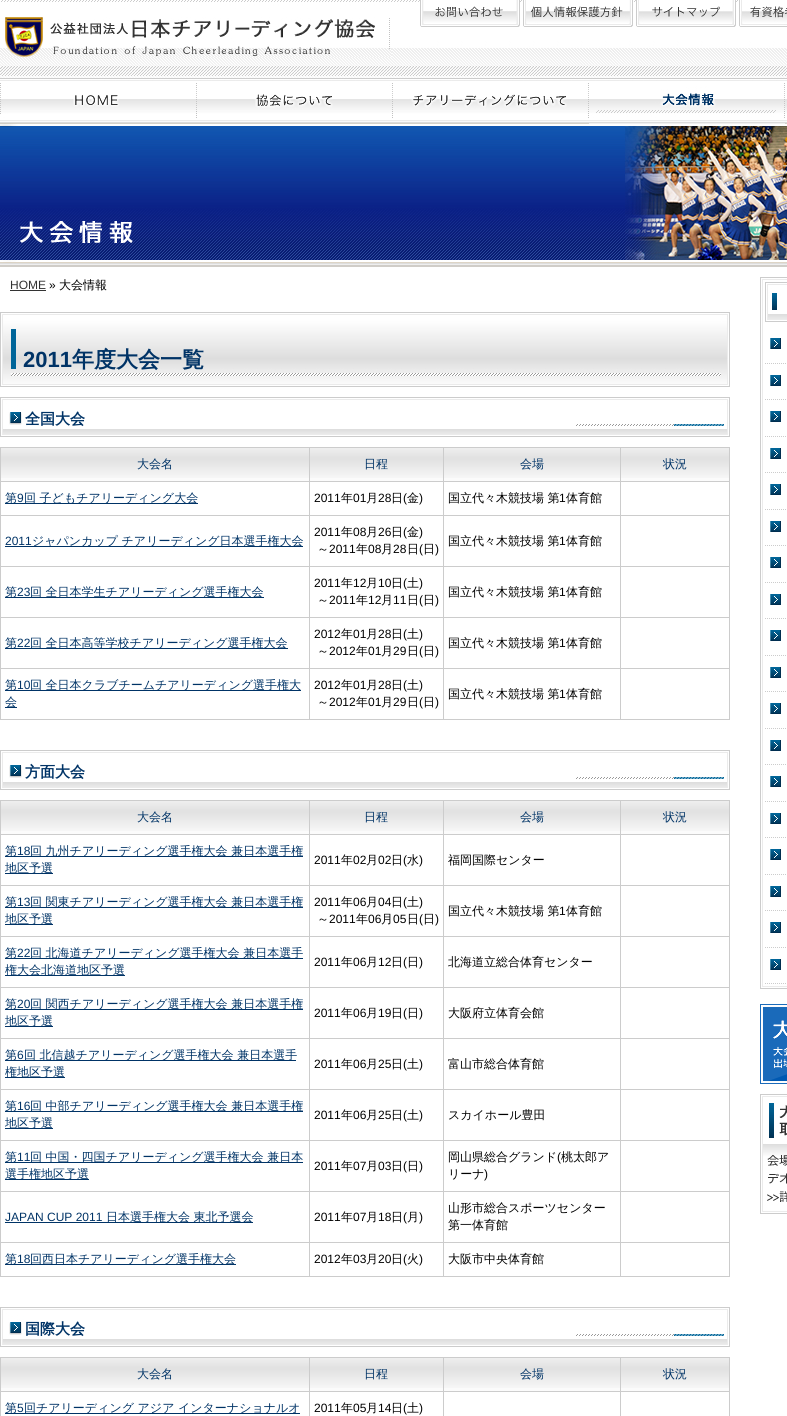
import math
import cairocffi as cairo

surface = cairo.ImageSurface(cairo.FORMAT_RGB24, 787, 1416)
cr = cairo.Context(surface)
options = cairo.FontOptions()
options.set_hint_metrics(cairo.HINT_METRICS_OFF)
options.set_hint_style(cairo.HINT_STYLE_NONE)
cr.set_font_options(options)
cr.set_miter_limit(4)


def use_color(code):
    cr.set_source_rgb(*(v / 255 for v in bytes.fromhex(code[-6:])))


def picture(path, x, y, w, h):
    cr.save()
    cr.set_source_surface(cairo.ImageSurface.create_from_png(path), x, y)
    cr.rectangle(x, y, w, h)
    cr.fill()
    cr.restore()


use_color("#ffffff")
cr.paint()
picture("img1.png", 0, 0, 787, 267)
picture("img2.png", 420, 0, 100, 27)
picture("img3.png", 523, 0, 110, 27)
picture("img4.png", 636, 0, 100, 27)
picture("img5.png", 739, 0, 48, 27)
picture("img6.png", 0, 17, 392, 40)
picture("img7.png", 0, 83, 197, 42)
picture("img8.png", 197, 83, 196, 35)
picture("img9.png", 393, 83, 196, 35)
picture("img10.png", 589, 83, 196, 41)
picture("img11.png", 785, 99, 2, 5)
picture("img12.png", 0, 125, 787, 140)
cr.select_font_face("Liberation Sans")
cr.set_font_size(12)
use_color("#333333")
cr.move_to(10, 289)
cr.show_text("HOME")
cr.rectangle(10, 290, 36, 1)
cr.fill()
use_color("#000000")
cr.move_to(49, 289)
cr.show_text("»")
cr.select_font_face("WenQuanYi Zen Hei Medium")
cr.move_to(59, 289)
cr.show_text("大会情報")
picture("img13.png", 0, 312, 730, 75)
cr.select_font_face("Liberation Sans", cairo.FONT_SLANT_NORMAL, cairo.FONT_WEIGHT_BOLD)
cr.set_font_size(22)
use_color("#003366")
cr.move_to(23, 367)
cr.show_text("2011")
cr.select_font_face("WenQuanYi Zen Hei", cairo.FONT_SLANT_NORMAL, cairo.FONT_WEIGHT_BOLD)
cr.move_to(72, 367)
cr.show_text("年度大会一覧")
picture("img14.png", 0, 397, 730, 40)
cr.set_font_size(15)
cr.move_to(25, 424)
cr.show_text("全国大会")
use_color("#cccccc")
cr.rectangle(0, 447, 730, 1)
cr.fill()
cr.rectangle(729, 447, 1, 273)
cr.fill()
cr.rectangle(0, 719, 730, 1)
cr.fill()
cr.rectangle(0, 447, 1, 273)
cr.fill()
use_color("#fbfbfb")
cr.rectangle(1, 478, 308, 3)
cr.fill()
picture("img15.png", 1, 448, 308, 30)
cr.select_font_face("WenQuanYi Zen Hei Medium")
cr.set_font_size(12)
use_color("#003366")
cr.move_to(137, 468)
cr.show_text("大会名")
use_color("#fbfbfb")
cr.rectangle(310, 478, 133, 3)
cr.fill()
picture("img16.png", 310, 448, 133, 30)
use_color("#cccccc")
cr.rectangle(620, 481, 110, 1)
cr.fill()
cr.rectangle(620, 515, 110, 1)
cr.fill()
cr.rectangle(620, 566, 110, 1)
cr.fill()
cr.rectangle(620, 617, 110, 1)
cr.fill()
cr.rectangle(620, 668, 110, 1)
cr.fill()
cr.rectangle(620, 668, 1, 52)
cr.fill()
cr.rectangle(443, 668, 178, 1)
cr.fill()
cr.rectangle(620, 617, 1, 52)
cr.fill()
cr.rectangle(443, 617, 178, 1)
cr.fill()
cr.rectangle(620, 566, 1, 52)
cr.fill()
cr.rectangle(443, 566, 178, 1)
cr.fill()
cr.rectangle(620, 515, 1, 52)
cr.fill()
cr.rectangle(443, 515, 178, 1)
cr.fill()
cr.rectangle(620, 481, 1, 35)
cr.fill()
cr.rectangle(443, 481, 178, 1)
cr.fill()
cr.rectangle(443, 668, 1, 52)
cr.fill()
cr.rectangle(309, 668, 135, 1)
cr.fill()
cr.rectangle(443, 617, 1, 52)
cr.fill()
cr.rectangle(309, 617, 135, 1)
cr.fill()
cr.rectangle(443, 566, 1, 52)
cr.fill()
cr.rectangle(309, 566, 135, 1)
cr.fill()
cr.rectangle(443, 515, 1, 52)
cr.fill()
cr.rectangle(309, 515, 135, 1)
cr.fill()
cr.rectangle(443, 481, 1, 35)
cr.fill()
cr.rectangle(309, 481, 135, 1)
cr.fill()
cr.rectangle(309, 668, 1, 52)
cr.fill()
cr.rectangle(0, 668, 310, 1)
cr.fill()
cr.rectangle(309, 617, 1, 52)
cr.fill()
cr.rectangle(0, 617, 310, 1)
cr.fill()
cr.rectangle(309, 566, 1, 52)
cr.fill()
cr.rectangle(0, 566, 310, 1)
cr.fill()
cr.rectangle(309, 515, 1, 52)
cr.fill()
cr.rectangle(0, 515, 310, 1)
cr.fill()
cr.rectangle(309, 481, 1, 35)
cr.fill()
cr.rectangle(0, 481, 310, 1)
cr.fill()
cr.rectangle(309, 447, 1, 35)
cr.fill()
use_color("#003366")
cr.move_to(364, 468)
cr.show_text("日程")
use_color("#fbfbfb")
cr.rectangle(444, 478, 176, 3)
cr.fill()
picture("img17.png", 444, 448, 176, 30)
use_color("#cccccc")
cr.rectangle(443, 447, 1, 35)
cr.fill()
use_color("#003366")
cr.move_to(520, 468)
cr.show_text("会場")
use_color("#fbfbfb")
cr.rectangle(621, 478, 108, 3)
cr.fill()
picture("img18.png", 621, 448, 108, 30)
use_color("#cccccc")
cr.rectangle(620, 447, 1, 35)
cr.fill()
use_color("#003366")
cr.move_to(663, 468)
cr.show_text("状況")
cr.rectangle(5, 503, 193, 1)
cr.fill()
cr.move_to(5, 502)
cr.show_text("第")
cr.select_font_face("Liberation Sans")
cr.move_to(17, 502)
cr.show_text("9")
cr.select_font_face("WenQuanYi Zen Hei Medium")
cr.move_to(24, 502)
cr.show_text("回 子どもチアリーディング大会")
cr.select_font_face("Liberation Sans")
use_color("#000000")
cr.move_to(314, 502)
cr.show_text("2011")
cr.select_font_face("WenQuanYi Zen Hei Medium")
cr.move_to(341, 502)
cr.show_text("年")
cr.select_font_face("Liberation Sans")
cr.move_to(353, 502)
cr.show_text("01")
cr.select_font_face("WenQuanYi Zen Hei Medium")
cr.move_to(366, 502)
cr.show_text("月")
cr.select_font_face("Liberation Sans")
cr.move_to(378, 502)
cr.show_text("28")
cr.select_font_face("WenQuanYi Zen Hei Medium")
cr.move_to(391, 502)
cr.show_text("日")
cr.select_font_face("Liberation Sans")
cr.move_to(403, 502)
cr.show_text("(")
cr.select_font_face("WenQuanYi Zen Hei Medium")
cr.move_to(407, 502)
cr.show_text("金")
cr.select_font_face("Liberation Sans")
cr.move_to(419, 502)
cr.show_text(")")
cr.select_font_face("WenQuanYi Zen Hei Medium")
cr.move_to(448, 502)
cr.show_text("国立代々木競技場 第")
cr.select_font_face("Liberation Sans")
cr.move_to(559, 502)
cr.show_text("1")
cr.select_font_face("WenQuanYi Zen Hei Medium")
cr.move_to(566, 502)
cr.show_text("体育館")
cr.select_font_face("Liberation Sans")
use_color("#003366")
cr.move_to(5, 545)
cr.show_text("2011")
cr.rectangle(5, 546, 298, 1)
cr.fill()
cr.select_font_face("WenQuanYi Zen Hei Medium")
cr.move_to(32, 545)
cr.show_text("ジャパンカップ チアリーディング日本選手権大会")
cr.select_font_face("Liberation Sans")
use_color("#000000")
cr.move_to(314, 536)
cr.show_text("2011")
cr.select_font_face("WenQuanYi Zen Hei Medium")
cr.move_to(341, 536)
cr.show_text("年")
cr.select_font_face("Liberation Sans")
cr.move_to(353, 536)
cr.show_text("08")
cr.select_font_face("WenQuanYi Zen Hei Medium")
cr.move_to(366, 536)
cr.show_text("月")
cr.select_font_face("Liberation Sans")
cr.move_to(378, 536)
cr.show_text("26")
cr.select_font_face("WenQuanYi Zen Hei Medium")
cr.move_to(391, 536)
cr.show_text("日")
cr.select_font_face("Liberation Sans")
cr.move_to(403, 536)
cr.show_text("(")
cr.select_font_face("WenQuanYi Zen Hei Medium")
cr.move_to(407, 536)
cr.show_text("金")
cr.select_font_face("Liberation Sans")
cr.move_to(419, 536)
cr.show_text(")")
cr.select_font_face("WenQuanYi Zen Hei Medium")
cr.move_to(317, 553)
cr.show_text("～")
cr.select_font_face("Liberation Sans")
cr.move_to(329, 553)
cr.show_text("2011")
cr.select_font_face("WenQuanYi Zen Hei Medium")
cr.move_to(356, 553)
cr.show_text("年")
cr.select_font_face("Liberation Sans")
cr.move_to(368, 553)
cr.show_text("08")
cr.select_font_face("WenQuanYi Zen Hei Medium")
cr.move_to(381, 553)
cr.show_text("月")
cr.select_font_face("Liberation Sans")
cr.move_to(393, 553)
cr.show_text("28")
cr.select_font_face("WenQuanYi Zen Hei Medium")
cr.move_to(407, 553)
cr.show_text("日")
cr.select_font_face("Liberation Sans")
cr.move_to(419, 553)
cr.show_text("(")
cr.select_font_face("WenQuanYi Zen Hei Medium")
cr.move_to(423, 553)
cr.show_text("日")
cr.select_font_face("Liberation Sans")
cr.move_to(435, 553)
cr.show_text(")")
cr.select_font_face("WenQuanYi Zen Hei Medium")
cr.move_to(448, 545)
cr.show_text("国立代々木競技場 第")
cr.select_font_face("Liberation Sans")
cr.move_to(559, 545)
cr.show_text("1")
cr.select_font_face("WenQuanYi Zen Hei Medium")
cr.move_to(566, 545)
cr.show_text("体育館")
use_color("#003366")
cr.rectangle(5, 597, 259, 1)
cr.fill()
cr.move_to(5, 596)
cr.show_text("第")
cr.select_font_face("Liberation Sans")
cr.move_to(17, 596)
cr.show_text("23")
cr.select_font_face("WenQuanYi Zen Hei Medium")
cr.move_to(30, 596)
cr.show_text("回 全日本学生チアリーディング選手権大会")
cr.select_font_face("Liberation Sans")
use_color("#000000")
cr.move_to(314, 587)
cr.show_text("2011")
cr.select_font_face("WenQuanYi Zen Hei Medium")
cr.move_to(341, 587)
cr.show_text("年")
cr.select_font_face("Liberation Sans")
cr.move_to(353, 587)
cr.show_text("12")
cr.select_font_face("WenQuanYi Zen Hei Medium")
cr.move_to(366, 587)
cr.show_text("月")
cr.select_font_face("Liberation Sans")
cr.move_to(378, 587)
cr.show_text("10")
cr.select_font_face("WenQuanYi Zen Hei Medium")
cr.move_to(391, 587)
cr.show_text("日")
cr.select_font_face("Liberation Sans")
cr.move_to(403, 587)
cr.show_text("(")
cr.select_font_face("WenQuanYi Zen Hei Medium")
cr.move_to(407, 587)
cr.show_text("土")
cr.select_font_face("Liberation Sans")
cr.move_to(419, 587)
cr.show_text(")")
cr.select_font_face("WenQuanYi Zen Hei Medium")
cr.move_to(317, 604)
cr.show_text("～")
cr.select_font_face("Liberation Sans")
cr.move_to(329, 604)
cr.show_text("2011")
cr.select_font_face("WenQuanYi Zen Hei Medium")
cr.move_to(356, 604)
cr.show_text("年")
cr.select_font_face("Liberation Sans")
cr.move_to(368, 604)
cr.show_text("12")
cr.select_font_face("WenQuanYi Zen Hei Medium")
cr.move_to(381, 604)
cr.show_text("月")
cr.select_font_face("Liberation Sans")
cr.move_to(393, 604)
cr.show_text("11")
cr.select_font_face("WenQuanYi Zen Hei Medium")
cr.move_to(407, 604)
cr.show_text("日")
cr.select_font_face("Liberation Sans")
cr.move_to(419, 604)
cr.show_text("(")
cr.select_font_face("WenQuanYi Zen Hei Medium")
cr.move_to(423, 604)
cr.show_text("日")
cr.select_font_face("Liberation Sans")
cr.move_to(435, 604)
cr.show_text(")")
cr.select_font_face("WenQuanYi Zen Hei Medium")
cr.move_to(448, 596)
cr.show_text("国立代々木競技場 第")
cr.select_font_face("Liberation Sans")
cr.move_to(559, 596)
cr.show_text("1")
cr.select_font_face("WenQuanYi Zen Hei Medium")
cr.move_to(566, 596)
cr.show_text("体育館")
use_color("#003366")
cr.rectangle(5, 648, 283, 1)
cr.fill()
cr.move_to(5, 647)
cr.show_text("第")
cr.select_font_face("Liberation Sans")
cr.move_to(17, 647)
cr.show_text("22")
cr.select_font_face("WenQuanYi Zen Hei Medium")
cr.move_to(30, 647)
cr.show_text("回 全日本高等学校チアリーディング選手権大会")
cr.select_font_face("Liberation Sans")
use_color("#000000")
cr.move_to(314, 638)
cr.show_text("2012")
cr.select_font_face("WenQuanYi Zen Hei Medium")
cr.move_to(341, 638)
cr.show_text("年")
cr.select_font_face("Liberation Sans")
cr.move_to(353, 638)
cr.show_text("01")
cr.select_font_face("WenQuanYi Zen Hei Medium")
cr.move_to(366, 638)
cr.show_text("月")
cr.select_font_face("Liberation Sans")
cr.move_to(378, 638)
cr.show_text("28")
cr.select_font_face("WenQuanYi Zen Hei Medium")
cr.move_to(391, 638)
cr.show_text("日")
cr.select_font_face("Liberation Sans")
cr.move_to(403, 638)
cr.show_text("(")
cr.select_font_face("WenQuanYi Zen Hei Medium")
cr.move_to(407, 638)
cr.show_text("土")
cr.select_font_face("Liberation Sans")
cr.move_to(419, 638)
cr.show_text(")")
cr.select_font_face("WenQuanYi Zen Hei Medium")
cr.move_to(317, 655)
cr.show_text("～")
cr.select_font_face("Liberation Sans")
cr.move_to(329, 655)
cr.show_text("2012")
cr.select_font_face("WenQuanYi Zen Hei Medium")
cr.move_to(356, 655)
cr.show_text("年")
cr.select_font_face("Liberation Sans")
cr.move_to(368, 655)
cr.show_text("01")
cr.select_font_face("WenQuanYi Zen Hei Medium")
cr.move_to(381, 655)
cr.show_text("月")
cr.select_font_face("Liberation Sans")
cr.move_to(393, 655)
cr.show_text("29")
cr.select_font_face("WenQuanYi Zen Hei Medium")
cr.move_to(407, 655)
cr.show_text("日")
cr.select_font_face("Liberation Sans")
cr.move_to(419, 655)
cr.show_text("(")
cr.select_font_face("WenQuanYi Zen Hei Medium")
cr.move_to(423, 655)
cr.show_text("日")
cr.select_font_face("Liberation Sans")
cr.move_to(435, 655)
cr.show_text(")")
cr.select_font_face("WenQuanYi Zen Hei Medium")
cr.move_to(448, 647)
cr.show_text("国立代々木競技場 第")
cr.select_font_face("Liberation Sans")
cr.move_to(559, 647)
cr.show_text("1")
cr.select_font_face("WenQuanYi Zen Hei Medium")
cr.move_to(566, 647)
cr.show_text("体育館")
use_color("#003366")
cr.rectangle(5, 690, 296, 1)
cr.fill()
cr.move_to(5, 689)
cr.show_text("第")
cr.select_font_face("Liberation Sans")
cr.move_to(17, 689)
cr.show_text("10")
cr.select_font_face("WenQuanYi Zen Hei Medium")
cr.move_to(30, 689)
cr.show_text("回 全日本クラブチームチアリーディング選手権大")
cr.rectangle(5, 707, 12, 1)
cr.fill()
cr.move_to(5, 706)
cr.show_text("会")
cr.select_font_face("Liberation Sans")
use_color("#000000")
cr.move_to(314, 689)
cr.show_text("2012")
cr.select_font_face("WenQuanYi Zen Hei Medium")
cr.move_to(341, 689)
cr.show_text("年")
cr.select_font_face("Liberation Sans")
cr.move_to(353, 689)
cr.show_text("01")
cr.select_font_face("WenQuanYi Zen Hei Medium")
cr.move_to(366, 689)
cr.show_text("月")
cr.select_font_face("Liberation Sans")
cr.move_to(378, 689)
cr.show_text("28")
cr.select_font_face("WenQuanYi Zen Hei Medium")
cr.move_to(391, 689)
cr.show_text("日")
cr.select_font_face("Liberation Sans")
cr.move_to(403, 689)
cr.show_text("(")
cr.select_font_face("WenQuanYi Zen Hei Medium")
cr.move_to(407, 689)
cr.show_text("土")
cr.select_font_face("Liberation Sans")
cr.move_to(419, 689)
cr.show_text(")")
cr.select_font_face("WenQuanYi Zen Hei Medium")
cr.move_to(317, 706)
cr.show_text("～")
cr.select_font_face("Liberation Sans")
cr.move_to(329, 706)
cr.show_text("2012")
cr.select_font_face("WenQuanYi Zen Hei Medium")
cr.move_to(356, 706)
cr.show_text("年")
cr.select_font_face("Liberation Sans")
cr.move_to(368, 706)
cr.show_text("01")
cr.select_font_face("WenQuanYi Zen Hei Medium")
cr.move_to(381, 706)
cr.show_text("月")
cr.select_font_face("Liberation Sans")
cr.move_to(393, 706)
cr.show_text("29")
cr.select_font_face("WenQuanYi Zen Hei Medium")
cr.move_to(407, 706)
cr.show_text("日")
cr.select_font_face("Liberation Sans")
cr.move_to(419, 706)
cr.show_text("(")
cr.select_font_face("WenQuanYi Zen Hei Medium")
cr.move_to(423, 706)
cr.show_text("日")
cr.select_font_face("Liberation Sans")
cr.move_to(435, 706)
cr.show_text(")")
cr.select_font_face("WenQuanYi Zen Hei Medium")
cr.move_to(448, 698)
cr.show_text("国立代々木競技場 第")
cr.select_font_face("Liberation Sans")
cr.move_to(559, 698)
cr.show_text("1")
cr.select_font_face("WenQuanYi Zen Hei Medium")
cr.move_to(566, 698)
cr.show_text("体育館")
picture("img14.png", 0, 750, 730, 40)
cr.select_font_face("WenQuanYi Zen Hei", cairo.FONT_SLANT_NORMAL, cairo.FONT_WEIGHT_BOLD)
cr.set_font_size(15)
use_color("#003366")
cr.move_to(25, 777)
cr.show_text("方面大会")
use_color("#cccccc")
cr.rectangle(0, 800, 730, 1)
cr.fill()
cr.rectangle(729, 800, 1, 477)
cr.fill()
cr.rectangle(0, 1276, 730, 1)
cr.fill()
cr.rectangle(0, 800, 1, 477)
cr.fill()
use_color("#fbfbfb")
cr.rectangle(1, 831, 308, 3)
cr.fill()
picture("img15.png", 1, 801, 308, 30)
cr.select_font_face("WenQuanYi Zen Hei Medium")
cr.set_font_size(12)
use_color("#003366")
cr.move_to(137, 821)
cr.show_text("大会名")
use_color("#fbfbfb")
cr.rectangle(310, 831, 133, 3)
cr.fill()
picture("img16.png", 310, 801, 133, 30)
use_color("#cccccc")
cr.rectangle(620, 834, 110, 1)
cr.fill()
cr.rectangle(620, 885, 110, 1)
cr.fill()
cr.rectangle(620, 936, 110, 1)
cr.fill()
cr.rectangle(620, 987, 110, 1)
cr.fill()
cr.rectangle(620, 1038, 110, 1)
cr.fill()
cr.rectangle(620, 1089, 110, 1)
cr.fill()
cr.rectangle(620, 1140, 110, 1)
cr.fill()
cr.rectangle(620, 1191, 110, 1)
cr.fill()
cr.rectangle(620, 1242, 110, 1)
cr.fill()
cr.rectangle(620, 1242, 1, 35)
cr.fill()
cr.rectangle(443, 1242, 178, 1)
cr.fill()
cr.rectangle(620, 1191, 1, 52)
cr.fill()
cr.rectangle(443, 1191, 178, 1)
cr.fill()
cr.rectangle(620, 1140, 1, 52)
cr.fill()
cr.rectangle(443, 1140, 178, 1)
cr.fill()
cr.rectangle(620, 1089, 1, 52)
cr.fill()
cr.rectangle(443, 1089, 178, 1)
cr.fill()
cr.rectangle(620, 1038, 1, 52)
cr.fill()
cr.rectangle(443, 1038, 178, 1)
cr.fill()
cr.rectangle(620, 987, 1, 52)
cr.fill()
cr.rectangle(443, 987, 178, 1)
cr.fill()
cr.rectangle(620, 936, 1, 52)
cr.fill()
cr.rectangle(443, 936, 178, 1)
cr.fill()
cr.rectangle(620, 885, 1, 52)
cr.fill()
cr.rectangle(443, 885, 178, 1)
cr.fill()
cr.rectangle(620, 834, 1, 52)
cr.fill()
cr.rectangle(443, 834, 178, 1)
cr.fill()
cr.rectangle(443, 1242, 1, 35)
cr.fill()
cr.rectangle(309, 1242, 135, 1)
cr.fill()
cr.rectangle(443, 1191, 1, 52)
cr.fill()
cr.rectangle(309, 1191, 135, 1)
cr.fill()
cr.rectangle(443, 1140, 1, 52)
cr.fill()
cr.rectangle(309, 1140, 135, 1)
cr.fill()
cr.rectangle(443, 1089, 1, 52)
cr.fill()
cr.rectangle(309, 1089, 135, 1)
cr.fill()
cr.rectangle(443, 1038, 1, 52)
cr.fill()
cr.rectangle(309, 1038, 135, 1)
cr.fill()
cr.rectangle(443, 987, 1, 52)
cr.fill()
cr.rectangle(309, 987, 135, 1)
cr.fill()
cr.rectangle(443, 936, 1, 52)
cr.fill()
cr.rectangle(309, 936, 135, 1)
cr.fill()
cr.rectangle(443, 885, 1, 52)
cr.fill()
cr.rectangle(309, 885, 135, 1)
cr.fill()
cr.rectangle(443, 834, 1, 52)
cr.fill()
cr.rectangle(309, 834, 135, 1)
cr.fill()
cr.rectangle(309, 1242, 1, 35)
cr.fill()
cr.rectangle(0, 1242, 310, 1)
cr.fill()
cr.rectangle(309, 1191, 1, 52)
cr.fill()
cr.rectangle(0, 1191, 310, 1)
cr.fill()
cr.rectangle(309, 1140, 1, 52)
cr.fill()
cr.rectangle(0, 1140, 310, 1)
cr.fill()
cr.rectangle(309, 1089, 1, 52)
cr.fill()
cr.rectangle(0, 1089, 310, 1)
cr.fill()
cr.rectangle(309, 1038, 1, 52)
cr.fill()
cr.rectangle(0, 1038, 310, 1)
cr.fill()
cr.rectangle(309, 987, 1, 52)
cr.fill()
cr.rectangle(0, 987, 310, 1)
cr.fill()
cr.rectangle(309, 936, 1, 52)
cr.fill()
cr.rectangle(0, 936, 310, 1)
cr.fill()
cr.rectangle(309, 885, 1, 52)
cr.fill()
cr.rectangle(0, 885, 310, 1)
cr.fill()
cr.rectangle(309, 834, 1, 52)
cr.fill()
cr.rectangle(0, 834, 310, 1)
cr.fill()
cr.rectangle(309, 800, 1, 35)
cr.fill()
use_color("#003366")
cr.move_to(364, 821)
cr.show_text("日程")
use_color("#fbfbfb")
cr.rectangle(444, 831, 176, 3)
cr.fill()
picture("img17.png", 444, 801, 176, 30)
use_color("#cccccc")
cr.rectangle(443, 800, 1, 35)
cr.fill()
use_color("#003366")
cr.move_to(520, 821)
cr.show_text("会場")
use_color("#fbfbfb")
cr.rectangle(621, 831, 108, 3)
cr.fill()
picture("img18.png", 621, 801, 108, 30)
use_color("#cccccc")
cr.rectangle(620, 800, 1, 35)
cr.fill()
use_color("#003366")
cr.move_to(663, 821)
cr.show_text("状況")
cr.rectangle(5, 856, 298, 1)
cr.fill()
cr.move_to(5, 855)
cr.show_text("第")
cr.select_font_face("Liberation Sans")
cr.move_to(17, 855)
cr.show_text("18")
cr.select_font_face("WenQuanYi Zen Hei Medium")
cr.move_to(30, 855)
cr.show_text("回 九州チアリーディング選手権大会 兼日本選手権")
cr.rectangle(5, 873, 48, 1)
cr.fill()
cr.move_to(5, 872)
cr.show_text("地区予選")
cr.select_font_face("Liberation Sans")
use_color("#000000")
cr.move_to(314, 864)
cr.show_text("2011")
cr.select_font_face("WenQuanYi Zen Hei Medium")
cr.move_to(341, 864)
cr.show_text("年")
cr.select_font_face("Liberation Sans")
cr.move_to(353, 864)
cr.show_text("02")
cr.select_font_face("WenQuanYi Zen Hei Medium")
cr.move_to(366, 864)
cr.show_text("月")
cr.select_font_face("Liberation Sans")
cr.move_to(378, 864)
cr.show_text("02")
cr.select_font_face("WenQuanYi Zen Hei Medium")
cr.move_to(391, 864)
cr.show_text("日")
cr.select_font_face("Liberation Sans")
cr.move_to(403, 864)
cr.show_text("(")
cr.select_font_face("WenQuanYi Zen Hei Medium")
cr.move_to(407, 864)
cr.show_text("水")
cr.select_font_face("Liberation Sans")
cr.move_to(419, 864)
cr.show_text(")")
cr.select_font_face("WenQuanYi Zen Hei Medium")
cr.move_to(448, 864)
cr.show_text("福岡国際センター")
use_color("#003366")
cr.rectangle(5, 907, 298, 1)
cr.fill()
cr.move_to(5, 906)
cr.show_text("第")
cr.select_font_face("Liberation Sans")
cr.move_to(17, 906)
cr.show_text("13")
cr.select_font_face("WenQuanYi Zen Hei Medium")
cr.move_to(30, 906)
cr.show_text("回 関東チアリーディング選手権大会 兼日本選手権")
cr.rectangle(5, 924, 48, 1)
cr.fill()
cr.move_to(5, 923)
cr.show_text("地区予選")
cr.select_font_face("Liberation Sans")
use_color("#000000")
cr.move_to(314, 906)
cr.show_text("2011")
cr.select_font_face("WenQuanYi Zen Hei Medium")
cr.move_to(341, 906)
cr.show_text("年")
cr.select_font_face("Liberation Sans")
cr.move_to(353, 906)
cr.show_text("06")
cr.select_font_face("WenQuanYi Zen Hei Medium")
cr.move_to(366, 906)
cr.show_text("月")
cr.select_font_face("Liberation Sans")
cr.move_to(378, 906)
cr.show_text("04")
cr.select_font_face("WenQuanYi Zen Hei Medium")
cr.move_to(391, 906)
cr.show_text("日")
cr.select_font_face("Liberation Sans")
cr.move_to(403, 906)
cr.show_text("(")
cr.select_font_face("WenQuanYi Zen Hei Medium")
cr.move_to(407, 906)
cr.show_text("土")
cr.select_font_face("Liberation Sans")
cr.move_to(419, 906)
cr.show_text(")")
cr.select_font_face("WenQuanYi Zen Hei Medium")
cr.move_to(317, 923)
cr.show_text("～")
cr.select_font_face("Liberation Sans")
cr.move_to(329, 923)
cr.show_text("2011")
cr.select_font_face("WenQuanYi Zen Hei Medium")
cr.move_to(356, 923)
cr.show_text("年")
cr.select_font_face("Liberation Sans")
cr.move_to(368, 923)
cr.show_text("06")
cr.select_font_face("WenQuanYi Zen Hei Medium")
cr.move_to(381, 923)
cr.show_text("月")
cr.select_font_face("Liberation Sans")
cr.move_to(393, 923)
cr.show_text("05")
cr.select_font_face("WenQuanYi Zen Hei Medium")
cr.move_to(407, 923)
cr.show_text("日")
cr.select_font_face("Liberation Sans")
cr.move_to(419, 923)
cr.show_text("(")
cr.select_font_face("WenQuanYi Zen Hei Medium")
cr.move_to(423, 923)
cr.show_text("日")
cr.select_font_face("Liberation Sans")
cr.move_to(435, 923)
cr.show_text(")")
cr.select_font_face("WenQuanYi Zen Hei Medium")
cr.move_to(448, 915)
cr.show_text("国立代々木競技場 第")
cr.select_font_face("Liberation Sans")
cr.move_to(559, 915)
cr.show_text("1")
cr.select_font_face("WenQuanYi Zen Hei Medium")
cr.move_to(566, 915)
cr.show_text("体育館")
use_color("#003366")
cr.rectangle(5, 958, 298, 1)
cr.fill()
cr.move_to(5, 957)
cr.show_text("第")
cr.select_font_face("Liberation Sans")
cr.move_to(17, 957)
cr.show_text("22")
cr.select_font_face("WenQuanYi Zen Hei Medium")
cr.move_to(30, 957)
cr.show_text("回 北海道チアリーディング選手権大会 兼日本選手")
cr.rectangle(5, 975, 120, 1)
cr.fill()
cr.move_to(5, 974)
cr.show_text("権大会北海道地区予選")
cr.select_font_face("Liberation Sans")
use_color("#000000")
cr.move_to(314, 966)
cr.show_text("2011")
cr.select_font_face("WenQuanYi Zen Hei Medium")
cr.move_to(341, 966)
cr.show_text("年")
cr.select_font_face("Liberation Sans")
cr.move_to(353, 966)
cr.show_text("06")
cr.select_font_face("WenQuanYi Zen Hei Medium")
cr.move_to(366, 966)
cr.show_text("月")
cr.select_font_face("Liberation Sans")
cr.move_to(378, 966)
cr.show_text("12")
cr.select_font_face("WenQuanYi Zen Hei Medium")
cr.move_to(391, 966)
cr.show_text("日")
cr.select_font_face("Liberation Sans")
cr.move_to(403, 966)
cr.show_text("(")
cr.select_font_face("WenQuanYi Zen Hei Medium")
cr.move_to(407, 966)
cr.show_text("日")
cr.select_font_face("Liberation Sans")
cr.move_to(419, 966)
cr.show_text(")")
cr.select_font_face("WenQuanYi Zen Hei Medium")
cr.move_to(448, 966)
cr.show_text("北海道立総合体育センター")
use_color("#003366")
cr.rectangle(5, 1009, 298, 1)
cr.fill()
cr.move_to(5, 1008)
cr.show_text("第")
cr.select_font_face("Liberation Sans")
cr.move_to(17, 1008)
cr.show_text("20")
cr.select_font_face("WenQuanYi Zen Hei Medium")
cr.move_to(30, 1008)
cr.show_text("回 関西チアリーディング選手権大会 兼日本選手権")
cr.rectangle(5, 1026, 48, 1)
cr.fill()
cr.move_to(5, 1025)
cr.show_text("地区予選")
cr.select_font_face("Liberation Sans")
use_color("#000000")
cr.move_to(314, 1017)
cr.show_text("2011")
cr.select_font_face("WenQuanYi Zen Hei Medium")
cr.move_to(341, 1017)
cr.show_text("年")
cr.select_font_face("Liberation Sans")
cr.move_to(353, 1017)
cr.show_text("06")
cr.select_font_face("WenQuanYi Zen Hei Medium")
cr.move_to(366, 1017)
cr.show_text("月")
cr.select_font_face("Liberation Sans")
cr.move_to(378, 1017)
cr.show_text("19")
cr.select_font_face("WenQuanYi Zen Hei Medium")
cr.move_to(391, 1017)
cr.show_text("日")
cr.select_font_face("Liberation Sans")
cr.move_to(403, 1017)
cr.show_text("(")
cr.select_font_face("WenQuanYi Zen Hei Medium")
cr.move_to(407, 1017)
cr.show_text("日")
cr.select_font_face("Liberation Sans")
cr.move_to(419, 1017)
cr.show_text(")")
cr.select_font_face("WenQuanYi Zen Hei Medium")
cr.move_to(448, 1017)
cr.show_text("大阪府立体育会館")
use_color("#003366")
cr.rectangle(5, 1060, 291, 1)
cr.fill()
cr.move_to(5, 1059)
cr.show_text("第")
cr.select_font_face("Liberation Sans")
cr.move_to(17, 1059)
cr.show_text("6")
cr.select_font_face("WenQuanYi Zen Hei Medium")
cr.move_to(24, 1059)
cr.show_text("回 北信越チアリーディング選手権大会 兼日本選手")
cr.rectangle(5, 1077, 60, 1)
cr.fill()
cr.move_to(5, 1076)
cr.show_text("権地区予選")
cr.select_font_face("Liberation Sans")
use_color("#000000")
cr.move_to(314, 1068)
cr.show_text("2011")
cr.select_font_face("WenQuanYi Zen Hei Medium")
cr.move_to(341, 1068)
cr.show_text("年")
cr.select_font_face("Liberation Sans")
cr.move_to(353, 1068)
cr.show_text("06")
cr.select_font_face("WenQuanYi Zen Hei Medium")
cr.move_to(366, 1068)
cr.show_text("月")
cr.select_font_face("Liberation Sans")
cr.move_to(378, 1068)
cr.show_text("25")
cr.select_font_face("WenQuanYi Zen Hei Medium")
cr.move_to(391, 1068)
cr.show_text("日")
cr.select_font_face("Liberation Sans")
cr.move_to(403, 1068)
cr.show_text("(")
cr.select_font_face("WenQuanYi Zen Hei Medium")
cr.move_to(407, 1068)
cr.show_text("土")
cr.select_font_face("Liberation Sans")
cr.move_to(419, 1068)
cr.show_text(")")
cr.select_font_face("WenQuanYi Zen Hei Medium")
cr.move_to(448, 1068)
cr.show_text("富山市総合体育館")
use_color("#003366")
cr.rectangle(5, 1111, 298, 1)
cr.fill()
cr.move_to(5, 1110)
cr.show_text("第")
cr.select_font_face("Liberation Sans")
cr.move_to(17, 1110)
cr.show_text("16")
cr.select_font_face("WenQuanYi Zen Hei Medium")
cr.move_to(30, 1110)
cr.show_text("回 中部チアリーディング選手権大会 兼日本選手権")
cr.rectangle(5, 1128, 48, 1)
cr.fill()
cr.move_to(5, 1127)
cr.show_text("地区予選")
cr.select_font_face("Liberation Sans")
use_color("#000000")
cr.move_to(314, 1119)
cr.show_text("2011")
cr.select_font_face("WenQuanYi Zen Hei Medium")
cr.move_to(341, 1119)
cr.show_text("年")
cr.select_font_face("Liberation Sans")
cr.move_to(353, 1119)
cr.show_text("06")
cr.select_font_face("WenQuanYi Zen Hei Medium")
cr.move_to(366, 1119)
cr.show_text("月")
cr.select_font_face("Liberation Sans")
cr.move_to(378, 1119)
cr.show_text("25")
cr.select_font_face("WenQuanYi Zen Hei Medium")
cr.move_to(391, 1119)
cr.show_text("日")
cr.select_font_face("Liberation Sans")
cr.move_to(403, 1119)
cr.show_text("(")
cr.select_font_face("WenQuanYi Zen Hei Medium")
cr.move_to(407, 1119)
cr.show_text("土")
cr.select_font_face("Liberation Sans")
cr.move_to(419, 1119)
cr.show_text(")")
cr.select_font_face("WenQuanYi Zen Hei Medium")
cr.move_to(448, 1119)
cr.show_text("スカイホール豊田")
use_color("#003366")
cr.rectangle(5, 1162, 298, 1)
cr.fill()
cr.move_to(5, 1161)
cr.show_text("第")
cr.select_font_face("Liberation Sans")
cr.move_to(17, 1161)
cr.show_text("11")
cr.select_font_face("WenQuanYi Zen Hei Medium")
cr.move_to(30, 1161)
cr.show_text("回 中国・四国チアリーディング選手権大会 兼日本")
cr.rectangle(5, 1179, 84, 1)
cr.fill()
cr.move_to(5, 1178)
cr.show_text("選手権地区予選")
cr.select_font_face("Liberation Sans")
use_color("#000000")
cr.move_to(314, 1170)
cr.show_text("2011")
cr.select_font_face("WenQuanYi Zen Hei Medium")
cr.move_to(341, 1170)
cr.show_text("年")
cr.select_font_face("Liberation Sans")
cr.move_to(353, 1170)
cr.show_text("07")
cr.select_font_face("WenQuanYi Zen Hei Medium")
cr.move_to(366, 1170)
cr.show_text("月")
cr.select_font_face("Liberation Sans")
cr.move_to(378, 1170)
cr.show_text("03")
cr.select_font_face("WenQuanYi Zen Hei Medium")
cr.move_to(391, 1170)
cr.show_text("日")
cr.select_font_face("Liberation Sans")
cr.move_to(403, 1170)
cr.show_text("(")
cr.select_font_face("WenQuanYi Zen Hei Medium")
cr.move_to(407, 1170)
cr.show_text("日")
cr.select_font_face("Liberation Sans")
cr.move_to(419, 1170)
cr.show_text(")")
cr.select_font_face("WenQuanYi Zen Hei Medium")
cr.move_to(448, 1161)
cr.show_text("岡山県総合グランド")
cr.select_font_face("Liberation Sans")
cr.move_to(557, 1161)
cr.show_text("(")
cr.select_font_face("WenQuanYi Zen Hei Medium")
cr.move_to(561, 1161)
cr.show_text("桃太郎ア")
cr.move_to(448, 1178)
cr.show_text("リーナ")
cr.select_font_face("Liberation Sans")
cr.move_to(484, 1178)
cr.show_text(")")
use_color("#003366")
cr.move_to(5, 1221)
cr.show_text("JAPAN CUP 2011")
cr.rectangle(5, 1222, 248, 1)
cr.fill()
cr.select_font_face("WenQuanYi Zen Hei Medium")
cr.move_to(106, 1221)
cr.show_text("日本選手権大会 東北予選会")
cr.select_font_face("Liberation Sans")
use_color("#000000")
cr.move_to(314, 1221)
cr.show_text("2011")
cr.select_font_face("WenQuanYi Zen Hei Medium")
cr.move_to(341, 1221)
cr.show_text("年")
cr.select_font_face("Liberation Sans")
cr.move_to(353, 1221)
cr.show_text("07")
cr.select_font_face("WenQuanYi Zen Hei Medium")
cr.move_to(366, 1221)
cr.show_text("月")
cr.select_font_face("Liberation Sans")
cr.move_to(378, 1221)
cr.show_text("18")
cr.select_font_face("WenQuanYi Zen Hei Medium")
cr.move_to(391, 1221)
cr.show_text("日")
cr.select_font_face("Liberation Sans")
cr.move_to(403, 1221)
cr.show_text("(")
cr.select_font_face("WenQuanYi Zen Hei Medium")
cr.move_to(407, 1221)
cr.show_text("月")
cr.select_font_face("Liberation Sans")
cr.move_to(419, 1221)
cr.show_text(")")
cr.select_font_face("WenQuanYi Zen Hei Medium")
cr.move_to(448, 1212)
cr.show_text("山形市総合スポーツセンター")
cr.move_to(448, 1229)
cr.show_text("第一体育館")
use_color("#003366")
cr.rectangle(5, 1264, 231, 1)
cr.fill()
cr.move_to(5, 1263)
cr.show_text("第")
cr.select_font_face("Liberation Sans")
cr.move_to(17, 1263)
cr.show_text("18")
cr.select_font_face("WenQuanYi Zen Hei Medium")
cr.move_to(30, 1263)
cr.show_text("回西日本チアリーディング選手権大会")
cr.select_font_face("Liberation Sans")
use_color("#000000")
cr.move_to(314, 1263)
cr.show_text("2012")
cr.select_font_face("WenQuanYi Zen Hei Medium")
cr.move_to(341, 1263)
cr.show_text("年")
cr.select_font_face("Liberation Sans")
cr.move_to(353, 1263)
cr.show_text("03")
cr.select_font_face("WenQuanYi Zen Hei Medium")
cr.move_to(366, 1263)
cr.show_text("月")
cr.select_font_face("Liberation Sans")
cr.move_to(378, 1263)
cr.show_text("20")
cr.select_font_face("WenQuanYi Zen Hei Medium")
cr.move_to(391, 1263)
cr.show_text("日")
cr.select_font_face("Liberation Sans")
cr.move_to(403, 1263)
cr.show_text("(")
cr.select_font_face("WenQuanYi Zen Hei Medium")
cr.move_to(407, 1263)
cr.show_text("火")
cr.select_font_face("Liberation Sans")
cr.move_to(419, 1263)
cr.show_text(")")
cr.select_font_face("WenQuanYi Zen Hei Medium")
cr.move_to(448, 1263)
cr.show_text("大阪市中央体育館")
picture("img14.png", 0, 1307, 730, 40)
cr.select_font_face("WenQuanYi Zen Hei", cairo.FONT_SLANT_NORMAL, cairo.FONT_WEIGHT_BOLD)
cr.set_font_size(15)
use_color("#003366")
cr.move_to(25, 1334)
cr.show_text("国際大会")
use_color("#cccccc")
cr.rectangle(0, 1357, 730, 1)
cr.fill()
cr.rectangle(729, 1357, 1, 59)
cr.fill()
cr.rectangle(0, 1357, 1, 59)
cr.fill()
use_color("#fbfbfb")
cr.rectangle(1, 1388, 308, 3)
cr.fill()
picture("img15.png", 1, 1358, 308, 30)
cr.select_font_face("WenQuanYi Zen Hei Medium")
cr.set_font_size(12)
use_color("#003366")
cr.move_to(137, 1378)
cr.show_text("大会名")
use_color("#fbfbfb")
cr.rectangle(310, 1388, 133, 3)
cr.fill()
picture("img16.png", 310, 1358, 133, 30)
use_color("#cccccc")
cr.rectangle(620, 1391, 110, 1)
cr.fill()
cr.rectangle(620, 1391, 1, 25)
cr.fill()
cr.rectangle(443, 1391, 178, 1)
cr.fill()
cr.rectangle(443, 1391, 1, 25)
cr.fill()
cr.rectangle(309, 1391, 135, 1)
cr.fill()
cr.rectangle(309, 1391, 1, 25)
cr.fill()
cr.rectangle(0, 1391, 310, 1)
cr.fill()
cr.rectangle(309, 1357, 1, 35)
cr.fill()
use_color("#003366")
cr.move_to(364, 1378)
cr.show_text("日程")
use_color("#fbfbfb")
cr.rectangle(444, 1388, 176, 3)
cr.fill()
picture("img17.png", 444, 1358, 176, 30)
use_color("#cccccc")
cr.rectangle(443, 1357, 1, 35)
cr.fill()
use_color("#003366")
cr.move_to(520, 1378)
cr.show_text("会場")
use_color("#fbfbfb")
cr.rectangle(621, 1388, 108, 3)
cr.fill()
picture("img18.png", 621, 1358, 108, 30)
use_color("#cccccc")
cr.rectangle(620, 1357, 1, 35)
cr.fill()
use_color("#003366")
cr.move_to(663, 1378)
cr.show_text("状況")
cr.rectangle(5, 1413, 295, 1)
cr.fill()
cr.move_to(5, 1412)
cr.show_text("第")
cr.select_font_face("Liberation Sans")
cr.move_to(17, 1412)
cr.show_text("5")
cr.select_font_face("WenQuanYi Zen Hei Medium")
cr.move_to(24, 1412)
cr.show_text("回チアリーディング アジア インターナショナルオ")
cr.select_font_face("Liberation Sans")
use_color("#000000")
cr.move_to(314, 1412)
cr.show_text("2011")
cr.select_font_face("WenQuanYi Zen Hei Medium")
cr.move_to(341, 1412)
cr.show_text("年")
cr.select_font_face("Liberation Sans")
cr.move_to(353, 1412)
cr.show_text("05")
cr.select_font_face("WenQuanYi Zen Hei Medium")
cr.move_to(366, 1412)
cr.show_text("月")
cr.select_font_face("Liberation Sans")
cr.move_to(378, 1412)
cr.show_text("14")
cr.select_font_face("WenQuanYi Zen Hei Medium")
cr.move_to(391, 1412)
cr.show_text("日")
cr.select_font_face("Liberation Sans")
cr.move_to(403, 1412)
cr.show_text("(")
cr.select_font_face("WenQuanYi Zen Hei Medium")
cr.move_to(407, 1412)
cr.show_text("土")
cr.select_font_face("Liberation Sans")
cr.move_to(419, 1412)
cr.show_text(")")
cr.rectangle(760.5, 277.5, 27, 711)
use_color("#cccccc")
cr.set_line_width(1)
cr.stroke()
cr.rectangle(762.5, 279.5, 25, 707)
use_color("#ebebeb")
cr.stroke()
picture("img19.png", 765, 282, 22, 40)
picture("img20.png", 770, 338, 11, 11)
cr.new_path()
cr.move_to(765, 363.5)
cr.line_to(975, 363.5)
use_color("#cccccc")
cr.set_dash([1, 1])
cr.stroke()
picture("img20.png", 770, 375, 11, 11)
cr.new_path()
cr.move_to(765, 399.5)
cr.line_to(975, 399.5)
cr.stroke()
picture("img20.png", 770, 411, 11, 11)
cr.new_path()
cr.move_to(765, 436.5)
cr.line_to(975, 436.5)
cr.stroke()
picture("img20.png", 770, 448, 11, 11)
cr.new_path()
cr.move_to(765, 472.5)
cr.line_to(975, 472.5)
cr.stroke()
picture("img20.png", 770, 484, 11, 11)
cr.new_path()
cr.move_to(765, 509.5)
cr.line_to(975, 509.5)
cr.stroke()
picture("img20.png", 770, 521, 11, 11)
cr.new_path()
cr.move_to(765, 545.5)
cr.line_to(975, 545.5)
cr.stroke()
picture("img20.png", 770, 557, 11, 11)
cr.new_path()
cr.move_to(765, 582.5)
cr.line_to(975, 582.5)
cr.stroke()
picture("img20.png", 770, 594, 11, 11)
cr.new_path()
cr.move_to(765, 618.5)
cr.line_to(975, 618.5)
cr.stroke()
picture("img20.png", 770, 630, 11, 11)
cr.new_path()
cr.move_to(765, 655.5)
cr.line_to(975, 655.5)
cr.stroke()
picture("img20.png", 770, 667, 11, 11)
cr.new_path()
cr.move_to(765, 691.5)
cr.line_to(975, 691.5)
cr.stroke()
picture("img20.png", 770, 703, 11, 11)
cr.new_path()
cr.move_to(765, 728.5)
cr.line_to(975, 728.5)
cr.stroke()
picture("img20.png", 770, 740, 11, 11)
cr.new_path()
cr.move_to(765, 764.5)
cr.line_to(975, 764.5)
cr.stroke()
picture("img20.png", 770, 776, 11, 11)
cr.new_path()
cr.move_to(765, 801.5)
cr.line_to(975, 801.5)
cr.stroke()
picture("img20.png", 770, 813, 11, 11)
cr.new_path()
cr.move_to(765, 837.5)
cr.line_to(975, 837.5)
cr.stroke()
picture("img20.png", 770, 849, 11, 11)
cr.new_path()
cr.move_to(765, 874.5)
cr.line_to(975, 874.5)
cr.stroke()
picture("img20.png", 770, 886, 11, 11)
cr.new_path()
cr.move_to(765, 910.5)
cr.line_to(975, 910.5)
cr.stroke()
picture("img20.png", 770, 922, 11, 11)
cr.new_path()
cr.move_to(765, 947.5)
cr.line_to(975, 947.5)
cr.stroke()
picture("img20.png", 770, 959, 11, 11)
cr.new_path()
cr.move_to(765, 983.5)
cr.line_to(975, 983.5)
cr.stroke()
picture("img21.png", 760, 1004, 27, 80)
picture("img22.png", 760, 1094, 27, 120)
surface.write_to_png("result.png")
